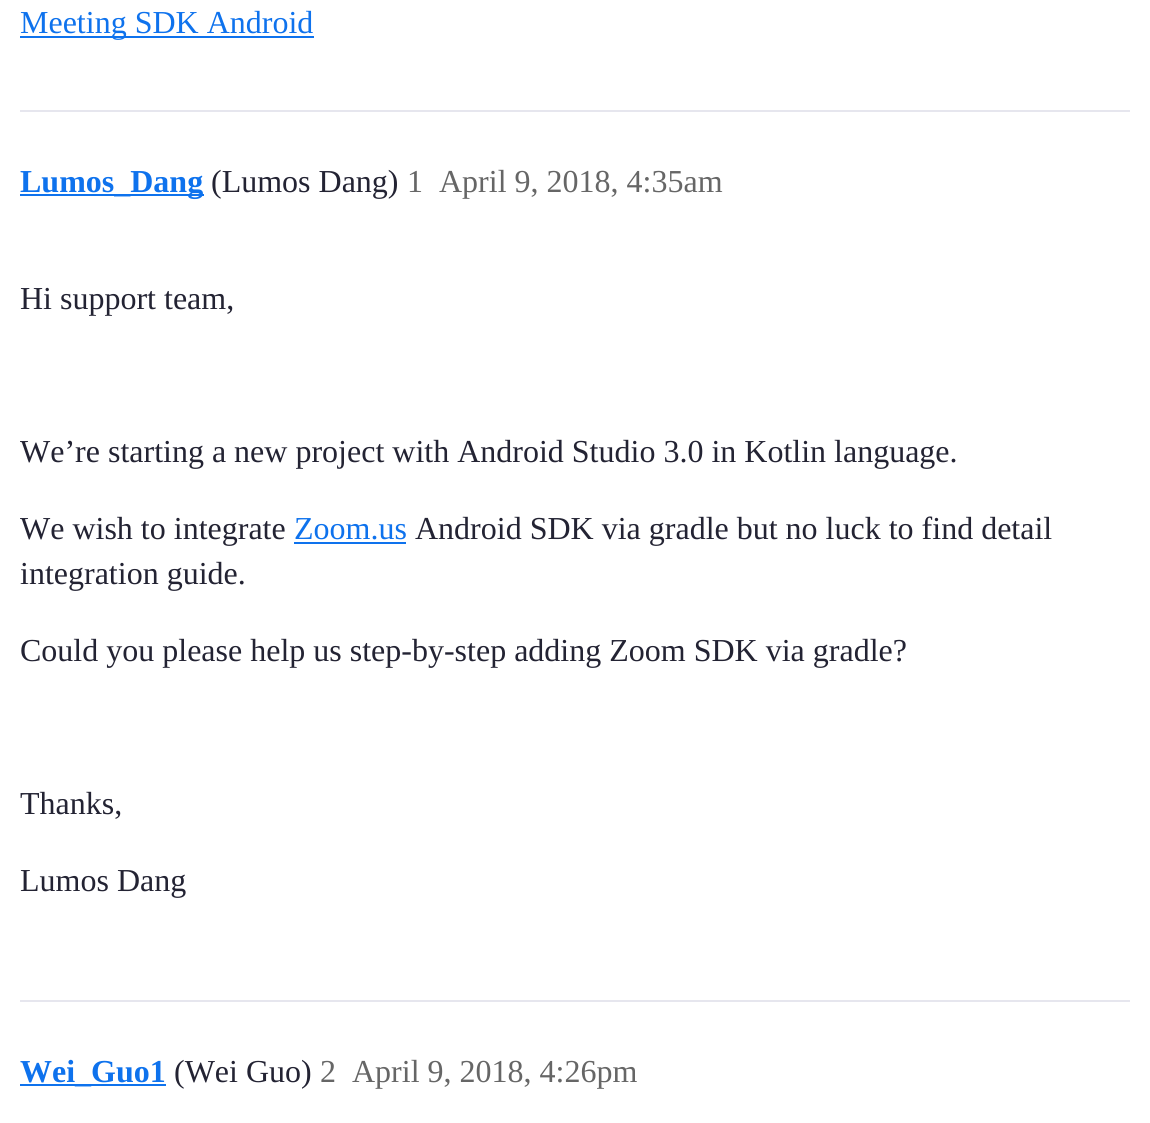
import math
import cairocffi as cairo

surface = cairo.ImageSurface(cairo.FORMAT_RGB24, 1150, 1123)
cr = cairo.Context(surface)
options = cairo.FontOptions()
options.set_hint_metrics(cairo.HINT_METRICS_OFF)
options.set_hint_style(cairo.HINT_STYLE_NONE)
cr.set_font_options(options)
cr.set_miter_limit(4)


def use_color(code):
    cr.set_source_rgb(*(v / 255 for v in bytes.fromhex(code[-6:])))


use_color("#ffffff")
cr.paint()
use_color("#0e72ed")
cr.rectangle(20, 36, 178, 2)
cr.fill()
cr.select_font_face("Liberation Serif")
cr.set_font_size(32)
cr.move_to(20, 33)
cr.show_text("Meeting SDK Android")
cr.rectangle(198, 36, 116, 2)
cr.fill()
use_color("#e6e6ee")
cr.rectangle(20, 110, 1110, 2)
cr.fill()
use_color("#0e72ed")
cr.rectangle(20, 194, 184, 2)
cr.fill()
cr.select_font_face("Liberation Serif", cairo.FONT_SLANT_NORMAL, cairo.FONT_WEIGHT_BOLD)
cr.move_to(20, 192)
cr.show_text("Lumos_Dang")
cr.select_font_face("Liberation Serif")
use_color("#232333")
cr.move_to(211, 192)
cr.show_text("(Lumos Dang)")
use_color("#666666")
cr.move_to(407, 192)
cr.show_text("1")
cr.move_to(439, 192)
cr.show_text("April 9, 2018, 4:35am")
use_color("#232333")
cr.move_to(20, 309)
cr.show_text("Hi support team,")
cr.move_to(20, 462)
cr.show_text("We’re starting a new project with Android Studio 3.0 in Kotlin language.")
cr.move_to(20, 539)
cr.show_text("We wish to integrate")
use_color("#0e72ed")
cr.move_to(294, 539)
cr.show_text("Zoom.us")
cr.rectangle(294, 542, 112, 2)
cr.fill()
use_color("#232333")
cr.move_to(415, 539)
cr.show_text("Android SDK via gradle but no luck to find detail")
cr.move_to(20, 584)
cr.show_text("integration guide.")
cr.move_to(20, 661)
cr.show_text("Could you please help us step-by-step adding Zoom SDK via gradle?")
cr.move_to(20, 814)
cr.show_text("Thanks,")
cr.move_to(20, 891)
cr.show_text("Lumos Dang")
use_color("#e6e6ee")
cr.rectangle(20, 1000, 1110, 2)
cr.fill()
use_color("#0e72ed")
cr.rectangle(20, 1084, 146, 2)
cr.fill()
cr.select_font_face("Liberation Serif", cairo.FONT_SLANT_NORMAL, cairo.FONT_WEIGHT_BOLD)
cr.move_to(20, 1082)
cr.show_text("Wei_Guo1")
cr.select_font_face("Liberation Serif")
use_color("#232333")
cr.move_to(174, 1082)
cr.show_text("(Wei Guo)")
use_color("#666666")
cr.move_to(320, 1082)
cr.show_text("2")
cr.move_to(352, 1082)
cr.show_text("April 9, 2018, 4:26pm")
surface.write_to_png("result.png")
